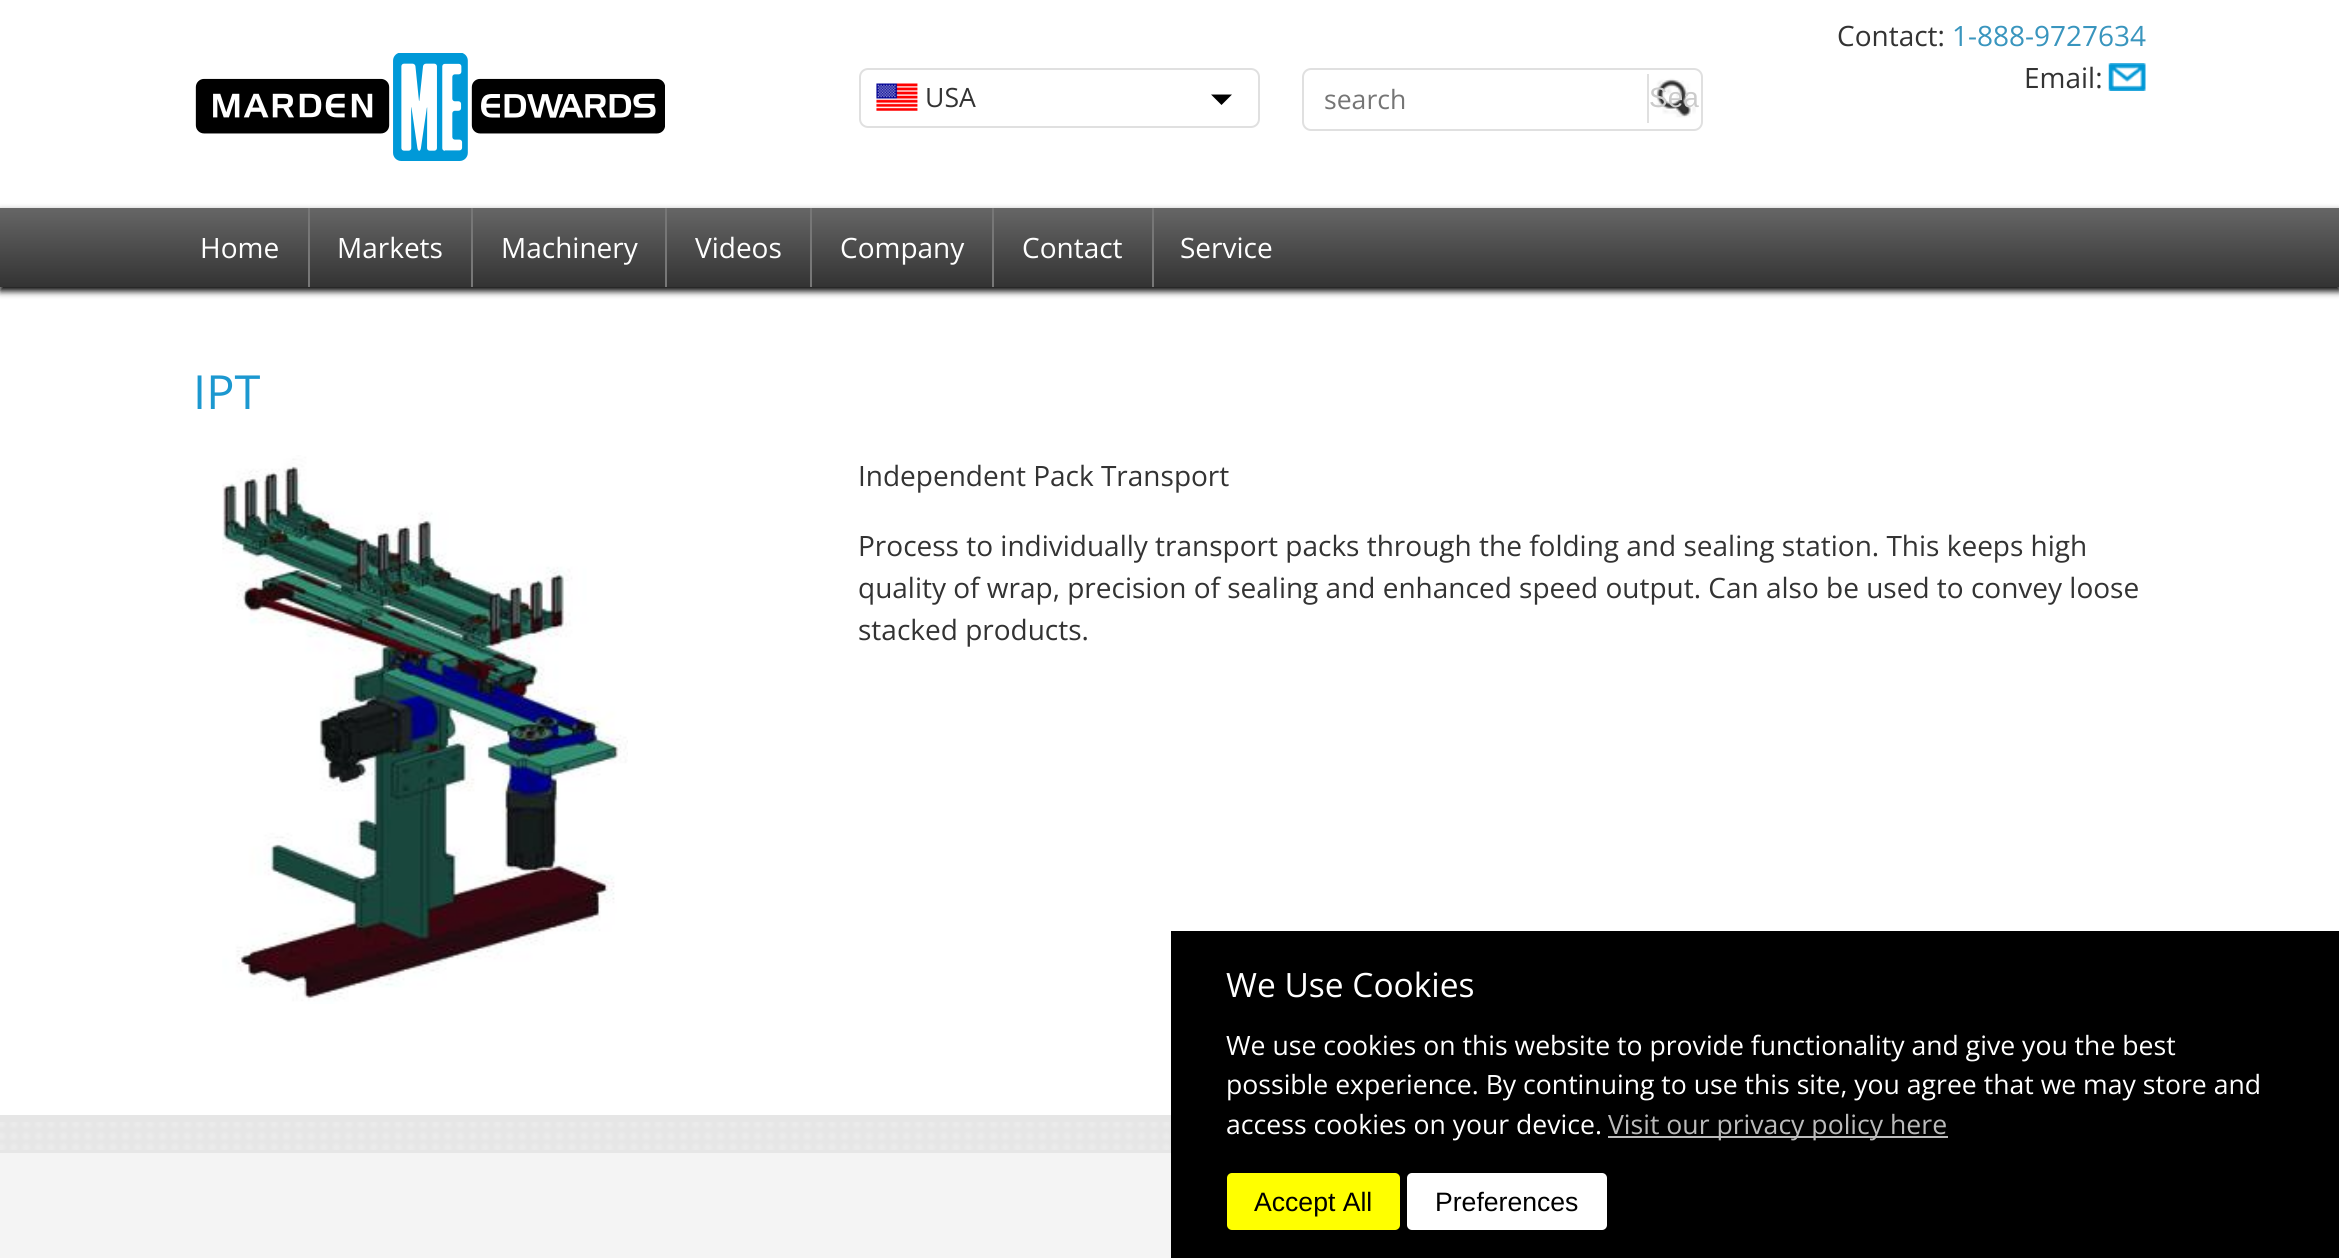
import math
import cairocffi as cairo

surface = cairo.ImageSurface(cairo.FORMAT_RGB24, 2339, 1258)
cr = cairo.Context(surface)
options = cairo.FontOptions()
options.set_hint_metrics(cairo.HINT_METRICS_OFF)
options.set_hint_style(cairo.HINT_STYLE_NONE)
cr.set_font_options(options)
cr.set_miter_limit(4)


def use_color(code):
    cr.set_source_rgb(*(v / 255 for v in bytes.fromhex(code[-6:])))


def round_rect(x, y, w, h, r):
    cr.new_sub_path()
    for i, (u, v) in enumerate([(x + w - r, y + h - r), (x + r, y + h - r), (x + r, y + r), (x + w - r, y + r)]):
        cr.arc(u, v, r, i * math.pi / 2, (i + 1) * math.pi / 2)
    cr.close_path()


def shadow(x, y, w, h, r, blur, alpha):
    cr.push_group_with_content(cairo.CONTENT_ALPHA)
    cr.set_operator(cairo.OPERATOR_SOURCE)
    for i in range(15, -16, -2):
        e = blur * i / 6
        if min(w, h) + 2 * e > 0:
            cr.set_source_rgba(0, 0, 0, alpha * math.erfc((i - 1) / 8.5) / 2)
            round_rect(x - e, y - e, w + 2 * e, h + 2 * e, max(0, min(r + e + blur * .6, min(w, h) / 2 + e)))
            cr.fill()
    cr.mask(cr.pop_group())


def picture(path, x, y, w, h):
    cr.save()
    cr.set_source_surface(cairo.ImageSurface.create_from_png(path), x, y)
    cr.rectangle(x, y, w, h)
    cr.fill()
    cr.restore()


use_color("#ffffff")
cr.paint()
picture("img1.png", 195, 53, 470, 108)
cr.select_font_face("Open Sans")
cr.set_font_size(28)
use_color("#333333")
cr.move_to(1837, 46)
cr.show_text("Contact:")
use_color("#3995be")
cr.move_to(1952, 46)
cr.show_text("1-888-9727634")
use_color("#333333")
cr.move_to(2024, 88)
cr.show_text("Email:")
picture("img2.png", 2108, 63, 38, 28)
round_rect(860, 69, 399, 58, 8)
use_color("#e0e0e0")
cr.stroke()
picture("img3.png", 876, 83, 42, 28)
cr.set_font_size(26.6)
use_color("#333333")
cr.move_to(925, 107)
cr.show_text("USA")
use_color("#000000")
cr.new_path()
cr.move_to(1211, 94.5)
cr.line_to(1232, 94.5)
cr.line_to(1221.5, 105)
cr.close_path()
cr.fill()
round_rect(1303, 69, 399, 61, 8)
use_color("#e0e0e0")
cr.stroke()
use_color("#757575")
cr.move_to(1324, 109)
cr.show_text("search")
picture("img4.png", 1656, 78, 40, 40)
use_color("#e0e0e0")
cr.rectangle(1647, 74, 2, 49)
cr.fill()
cr.select_font_face("Liberation Sans")
cr.set_font_size(28)
use_color("#cbcbcb")
cr.move_to(1649, 107)
cr.show_text("Sea")
use_color("#000000")
shadow(0, 212, 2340, 79, 0, 3.5, 1)
gradient = cairo.LinearGradient(1170, 208, 1170, 287)
gradient.add_color_stop_rgba(0, 0.4, 0.4, 0.4, 1)
gradient.add_color_stop_rgba(1, 0.2, 0.2, 0.2, 1)
cr.set_source(gradient)
cr.rectangle(0, 208, 2339, 79)
cr.fill()
use_color("#777777")
cr.rectangle(308, 208, 2, 79)
cr.fill()
cr.select_font_face("Open Sans")
use_color("#ffffff")
cr.move_to(200, 258)
cr.show_text("Home")
use_color("#777777")
cr.rectangle(471, 208, 2, 79)
cr.fill()
use_color("#ffffff")
cr.move_to(337, 258)
cr.show_text("Markets")
use_color("#777777")
cr.rectangle(665, 208, 2, 79)
cr.fill()
use_color("#ffffff")
cr.move_to(501, 258)
cr.show_text("Machinery")
use_color("#777777")
cr.rectangle(810, 208, 2, 79)
cr.fill()
use_color("#ffffff")
cr.move_to(695, 258)
cr.show_text("Videos")
use_color("#777777")
cr.rectangle(992, 208, 2, 79)
cr.fill()
use_color("#ffffff")
cr.move_to(840, 258)
cr.show_text("Company")
use_color("#777777")
cr.rectangle(1152, 208, 2, 79)
cr.fill()
use_color("#ffffff")
cr.move_to(1022, 258)
cr.show_text("Contact")
cr.move_to(1180, 258)
cr.show_text("Service")
cr.set_font_size(47)
use_color("#1c98d0")
cr.move_to(193, 409)
cr.show_text("IPT")
picture("img5.png", 222, 455, 406, 549)
cr.set_font_size(28)
use_color("#333333")
cr.move_to(858, 486)
cr.show_text("Independent Pack Transport")
cr.move_to(858, 556)
cr.show_text("Process to individually transport packs through the folding and sealing station. This keeps high")
cr.move_to(858, 598)
cr.show_text("quality of wrap, precision of sealing and enhanced speed output. Can also be used to convey loose")
cr.move_to(858, 640)
cr.show_text("stacked products.")
use_color("#e6e6e6")
cr.rectangle(0, 1115, 1171, 38)
cr.fill()
picture("img6.png", 0, 1122, 1171, 28)
use_color("#f4f4f4")
cr.rectangle(0, 1153, 1171, 105)
cr.fill()
use_color("#000000")
cr.rectangle(1171, 931, 1168, 327)
cr.fill()
cr.set_font_size(33.5)
use_color("#ffffff")
cr.move_to(1226, 997)
cr.show_text("We Use Cookies")
cr.set_font_size(26.6)
cr.move_to(1226, 1055)
cr.show_text("We use cookies on this website to provide functionality and give you the best")
cr.move_to(1226, 1094)
cr.show_text("possible experience. By continuing to use this site, you agree that we may store and")
cr.move_to(1226, 1134)
cr.show_text("access cookies on your device.")
use_color("#bbbbbb")
cr.rectangle(1608, 1136, 340, 2)
cr.fill()
cr.move_to(1608, 1134)
cr.show_text("Visit our privacy policy here")
use_color("#ffff00")
round_rect(1227, 1173, 173, 57, 5)
cr.fill()
cr.select_font_face("Liberation Sans")
use_color("#000000")
cr.move_to(1254, 1211)
cr.show_text("Accept All")
use_color("#ffffff")
round_rect(1407, 1173, 200, 57, 5)
cr.fill()
use_color("#000000")
cr.move_to(1435, 1211)
cr.show_text("Preferences")
surface.write_to_png("result.png")
